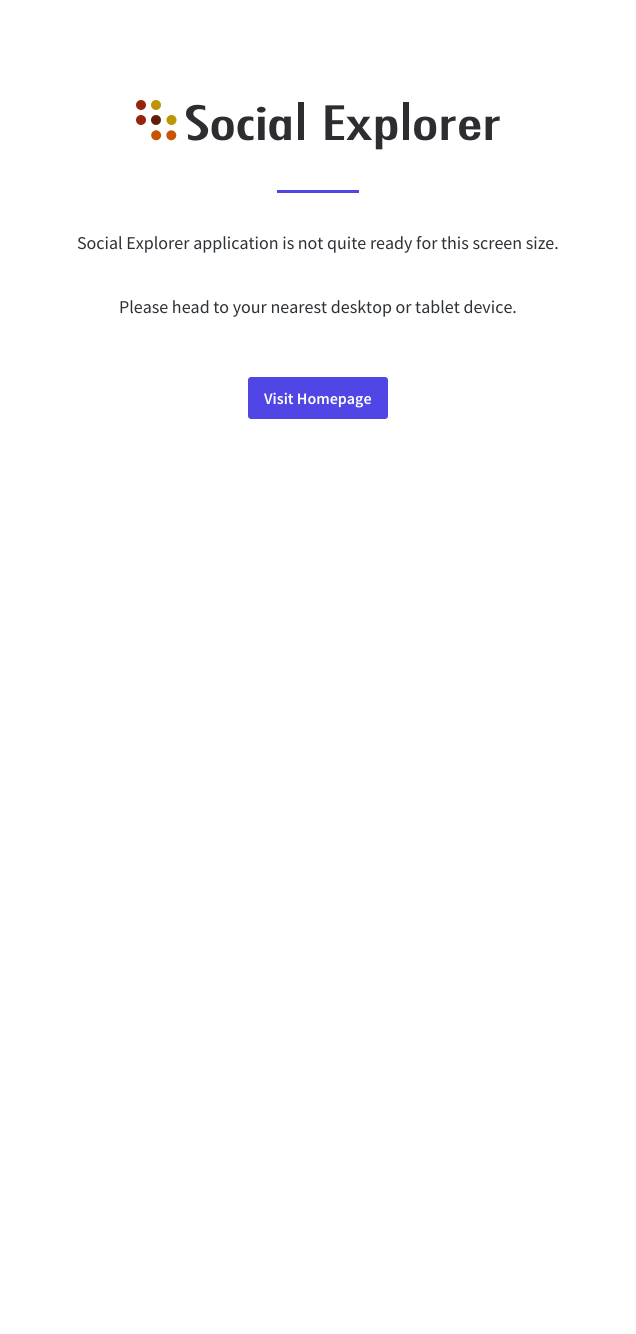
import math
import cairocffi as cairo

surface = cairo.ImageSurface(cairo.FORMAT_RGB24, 636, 1334)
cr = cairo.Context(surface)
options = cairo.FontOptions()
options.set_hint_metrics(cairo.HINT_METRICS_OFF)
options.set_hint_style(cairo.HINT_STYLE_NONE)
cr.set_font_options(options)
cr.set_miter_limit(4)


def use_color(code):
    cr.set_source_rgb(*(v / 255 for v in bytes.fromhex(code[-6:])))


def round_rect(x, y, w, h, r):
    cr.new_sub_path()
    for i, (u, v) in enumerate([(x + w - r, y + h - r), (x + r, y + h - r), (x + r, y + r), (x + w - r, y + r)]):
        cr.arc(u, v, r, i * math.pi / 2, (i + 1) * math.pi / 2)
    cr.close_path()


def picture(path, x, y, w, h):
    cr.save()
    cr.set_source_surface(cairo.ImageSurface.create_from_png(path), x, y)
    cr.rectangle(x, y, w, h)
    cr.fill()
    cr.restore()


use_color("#ffffff")
cr.paint()
picture("img1.png", 136, 100, 364, 50)
use_color("#4f46e5")
cr.rectangle(277, 190, 82, 3)
cr.fill()
cr.select_font_face("Source Sans Pro")
cr.set_font_size(18)
use_color("#2d3237")
cr.move_to(77, 249)
cr.show_text("Social Explorer application is not quite ready for this screen size.")
cr.move_to(119, 313)
cr.show_text("Please head to your nearest desktop or tablet device.")
use_color("#4f46e5")
round_rect(248, 377, 140, 42, 3)
cr.fill()
cr.select_font_face("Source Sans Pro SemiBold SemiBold")
cr.set_font_size(16)
use_color("#ffffff")
cr.move_to(264, 404)
cr.show_text("Visit Homepage")
surface.write_to_png("result.png")
